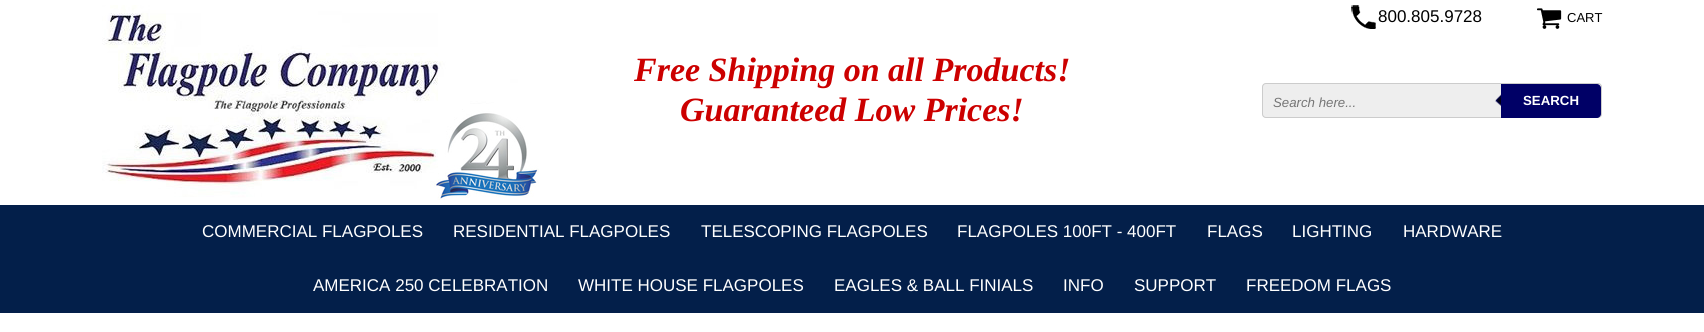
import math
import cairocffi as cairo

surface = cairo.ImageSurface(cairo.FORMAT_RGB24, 1704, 332)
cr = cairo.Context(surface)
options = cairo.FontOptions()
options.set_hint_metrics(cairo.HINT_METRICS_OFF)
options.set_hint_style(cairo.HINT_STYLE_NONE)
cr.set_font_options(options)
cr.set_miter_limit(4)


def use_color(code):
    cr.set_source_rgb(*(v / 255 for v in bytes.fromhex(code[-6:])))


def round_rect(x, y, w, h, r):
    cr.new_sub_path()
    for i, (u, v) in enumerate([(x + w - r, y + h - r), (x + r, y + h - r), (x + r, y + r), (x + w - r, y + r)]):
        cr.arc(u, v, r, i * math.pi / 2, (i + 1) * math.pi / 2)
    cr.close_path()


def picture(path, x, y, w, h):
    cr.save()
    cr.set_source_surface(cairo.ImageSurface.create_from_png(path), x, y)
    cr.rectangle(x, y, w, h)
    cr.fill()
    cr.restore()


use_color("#ffffff")
cr.paint()
picture("img1.png", 1351, 5, 25, 24)
cr.select_font_face("Liberation Sans")
cr.set_font_size(17)
use_color("#000000")
cr.move_to(1378, 22)
cr.show_text("800.805.9728")
picture("img2.png", 1537, 8, 25, 21)
cr.set_font_size(13)
cr.move_to(1567, 22)
cr.show_text("CART")
cr.select_font_face("Liberation Serif", cairo.FONT_SLANT_ITALIC, cairo.FONT_WEIGHT_BOLD)
cr.set_font_size(34)
use_color("#cc0000")
cr.move_to(634, 81)
cr.show_text("Free Shipping on all Products!")
cr.move_to(680, 121)
cr.show_text("Guaranteed Low Prices!")
picture("img3.png", 102, 5, 437, 195)
use_color("#eeeeee")
round_rect(1262, 83, 340, 35, 4)
cr.fill()
picture("img4.png", 1495, 94, 6, 13)
round_rect(1262.5, 83.5, 339, 34, 3.5)
use_color("#cccccc")
cr.set_line_width(1)
cr.stroke()
cr.select_font_face("Liberation Sans", cairo.FONT_SLANT_ITALIC)
cr.set_font_size(13.25)
use_color("#757575")
cr.move_to(1273, 107)
cr.show_text("Search here...")
use_color("#000066")
cr.new_path()
cr.move_to(1501, 84)
cr.line_to(1597, 84)
cr.curve_to(1599, 84, 1601, 86, 1601, 88)
cr.line_to(1601, 114)
cr.curve_to(1601, 116, 1599, 118, 1597, 118)
cr.line_to(1501, 118)
cr.close_path()
cr.fill()
cr.select_font_face("Liberation Sans", cairo.FONT_SLANT_NORMAL, cairo.FONT_WEIGHT_BOLD)
use_color("#ffffff")
cr.move_to(1523, 105)
cr.show_text("SEARCH")
use_color("#031f4a")
cr.rectangle(0, 205, 1704, 108)
cr.fill()
cr.select_font_face("Liberation Sans")
cr.set_font_size(17)
use_color("#ffffff")
cr.move_to(202, 237)
cr.show_text("COMMERCIAL FLAGPOLES")
cr.move_to(453, 237)
cr.show_text("RESIDENTIAL FLAGPOLES")
cr.move_to(701, 237)
cr.show_text("TELESCOPING FLAGPOLES")
cr.move_to(957, 237)
cr.show_text("FLAGPOLES 100FT - 400FT")
cr.move_to(1207, 237)
cr.show_text("FLAGS")
cr.move_to(1292, 237)
cr.show_text("LIGHTING")
cr.move_to(1403, 237)
cr.show_text("HARDWARE")
cr.move_to(313, 291)
cr.show_text("AMERICA 250 CELEBRATION")
cr.move_to(578, 291)
cr.show_text("WHITE HOUSE FLAGPOLES")
cr.move_to(834, 291)
cr.show_text("EAGLES & BALL FINIALS")
cr.move_to(1063, 291)
cr.show_text("INFO")
cr.move_to(1134, 291)
cr.show_text("SUPPORT")
cr.move_to(1246, 291)
cr.show_text("FREEDOM FLAGS")
surface.write_to_png("result.png")
